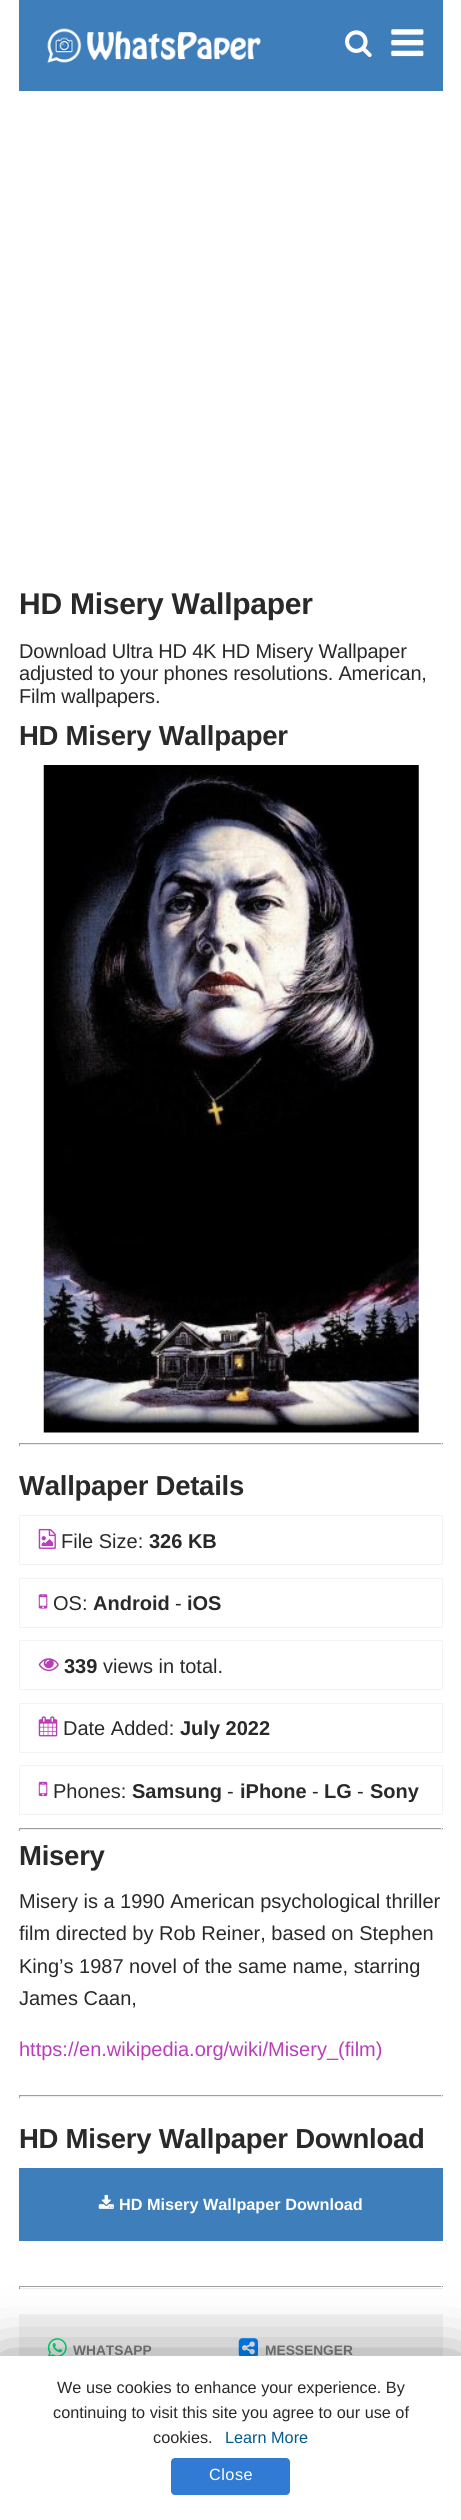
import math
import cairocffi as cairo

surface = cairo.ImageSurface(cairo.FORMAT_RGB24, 461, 2520)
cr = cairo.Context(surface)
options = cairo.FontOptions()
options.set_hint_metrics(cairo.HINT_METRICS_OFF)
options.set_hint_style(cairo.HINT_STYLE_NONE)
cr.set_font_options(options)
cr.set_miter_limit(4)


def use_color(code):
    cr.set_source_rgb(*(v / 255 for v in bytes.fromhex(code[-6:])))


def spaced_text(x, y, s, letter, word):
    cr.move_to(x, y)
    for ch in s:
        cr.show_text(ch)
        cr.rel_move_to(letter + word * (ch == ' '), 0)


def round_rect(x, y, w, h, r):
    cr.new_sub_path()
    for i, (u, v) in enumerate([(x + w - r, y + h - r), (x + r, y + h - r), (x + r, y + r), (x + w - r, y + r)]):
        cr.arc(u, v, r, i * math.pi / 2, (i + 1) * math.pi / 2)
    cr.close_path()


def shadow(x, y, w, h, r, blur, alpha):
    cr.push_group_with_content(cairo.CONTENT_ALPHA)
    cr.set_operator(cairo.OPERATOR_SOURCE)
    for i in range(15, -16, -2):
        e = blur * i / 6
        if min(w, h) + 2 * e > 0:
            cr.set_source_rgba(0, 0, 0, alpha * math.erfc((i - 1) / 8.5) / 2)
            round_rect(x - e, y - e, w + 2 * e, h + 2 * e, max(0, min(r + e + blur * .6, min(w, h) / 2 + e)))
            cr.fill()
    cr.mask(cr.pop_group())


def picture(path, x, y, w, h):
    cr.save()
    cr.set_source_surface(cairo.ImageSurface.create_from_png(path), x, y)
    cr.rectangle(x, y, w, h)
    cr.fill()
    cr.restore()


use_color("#ffffff")
cr.paint()
use_color("#3e7eba")
cr.rectangle(19, 0, 424, 91)
cr.fill()
picture("img1.png", 47, 28, 214, 35)
picture("img2.png", 345, 30, 27, 27)
picture("img3.png", 391, 29, 33, 28)
cr.select_font_face("Liberation Sans", cairo.FONT_SLANT_NORMAL, cairo.FONT_WEIGHT_BOLD)
cr.set_font_size(30)
use_color("#292929")
spaced_text(19, 614, "HD Misery Wallpaper", -0.25, 0)
cr.select_font_face("Liberation Sans")
cr.set_font_size(20)
spaced_text(19, 658, "Download Ultra HD 4K HD Misery Wallpaper", -0.2, 0)
spaced_text(19, 680, "adjusted to your phones resolutions. American,", -0.2, 0)
spaced_text(19, 703, "Film wallpapers.", -0.2, 0)
cr.select_font_face("Liberation Sans", cairo.FONT_SLANT_NORMAL, cairo.FONT_WEIGHT_BOLD)
cr.set_font_size(27.5)
spaced_text(19, 745, "HD Misery Wallpaper", -0.25, 0)
picture("img4.png", 43, 765, 376, 668)
use_color("#9f9f9f")
cr.rectangle(19, 1443, 424, 1)
cr.fill()
use_color("#eeeeee")
cr.rectangle(441, 1443, 1, 3)
cr.fill()
cr.rectangle(19, 1444, 424, 1)
cr.fill()
use_color("#9f9f9f")
cr.rectangle(19, 1443, 1, 3)
cr.fill()
use_color("#292929")
spaced_text(19, 1495, "Wallpaper Details", -0.25, 0)
cr.rectangle(19.5, 1515.5, 423, 49)
use_color("#f3f3f3")
cr.set_line_width(1)
cr.stroke()
picture("img5.png", 38, 1528, 18, 21)
cr.select_font_face("Liberation Sans")
cr.set_font_size(20)
use_color("#292929")
cr.move_to(61, 1548)
cr.show_text("File Size:")
cr.select_font_face("Liberation Sans", cairo.FONT_SLANT_NORMAL, cairo.FONT_WEIGHT_BOLD)
cr.move_to(149, 1548)
cr.show_text("326 KB")
cr.rectangle(19.5, 1578.5, 423, 49)
use_color("#f3f3f3")
cr.stroke()
picture("img6.png", 38, 1594, 10, 15)
cr.select_font_face("Liberation Sans")
use_color("#292929")
cr.move_to(53, 1610)
cr.show_text("OS:")
cr.select_font_face("Liberation Sans", cairo.FONT_SLANT_NORMAL, cairo.FONT_WEIGHT_BOLD)
cr.move_to(93, 1610)
cr.show_text("Android")
cr.select_font_face("Liberation Sans")
cr.move_to(175, 1610)
cr.show_text("-")
cr.select_font_face("Liberation Sans", cairo.FONT_SLANT_NORMAL, cairo.FONT_WEIGHT_BOLD)
cr.move_to(187, 1610)
cr.show_text("iOS")
cr.rectangle(19.5, 1640.5, 423, 49)
use_color("#f3f3f3")
cr.stroke()
picture("img7.png", 38, 1658, 21, 14)
use_color("#292929")
cr.move_to(64, 1673)
cr.show_text("339")
cr.select_font_face("Liberation Sans")
cr.move_to(103, 1673)
cr.show_text("views in total.")
cr.rectangle(19.5, 1703.5, 423, 49)
use_color("#f3f3f3")
cr.stroke()
picture("img8.png", 38, 1716, 20, 21)
use_color("#292929")
cr.move_to(63, 1735)
cr.show_text("Date Added:")
cr.select_font_face("Liberation Sans", cairo.FONT_SLANT_NORMAL, cairo.FONT_WEIGHT_BOLD)
cr.move_to(180, 1735)
cr.show_text("July 2022")
cr.rectangle(19.5, 1765.5, 423, 49)
use_color("#f3f3f3")
cr.stroke()
picture("img9.png", 38, 1781, 10, 16)
cr.select_font_face("Liberation Sans")
use_color("#292929")
cr.move_to(53, 1798)
cr.show_text("Phones:")
cr.select_font_face("Liberation Sans", cairo.FONT_SLANT_NORMAL, cairo.FONT_WEIGHT_BOLD)
cr.move_to(132, 1798)
cr.show_text("Samsung")
cr.select_font_face("Liberation Sans")
cr.move_to(227, 1798)
cr.show_text("-")
cr.select_font_face("Liberation Sans", cairo.FONT_SLANT_NORMAL, cairo.FONT_WEIGHT_BOLD)
cr.move_to(240, 1798)
cr.show_text("iPhone")
cr.select_font_face("Liberation Sans")
cr.move_to(312, 1798)
cr.show_text("-")
cr.select_font_face("Liberation Sans", cairo.FONT_SLANT_NORMAL, cairo.FONT_WEIGHT_BOLD)
cr.move_to(324, 1798)
cr.show_text("LG")
cr.select_font_face("Liberation Sans")
cr.move_to(357, 1798)
cr.show_text("-")
cr.select_font_face("Liberation Sans", cairo.FONT_SLANT_NORMAL, cairo.FONT_WEIGHT_BOLD)
cr.move_to(370, 1798)
cr.show_text("Sony")
use_color("#9f9f9f")
cr.rectangle(19, 1828, 424, 1)
cr.fill()
use_color("#eeeeee")
cr.rectangle(441, 1828, 1, 3)
cr.fill()
cr.rectangle(19, 1829, 424, 1)
cr.fill()
use_color("#9f9f9f")
cr.rectangle(19, 1828, 1, 3)
cr.fill()
cr.set_font_size(27.5)
use_color("#292929")
spaced_text(19, 1865, "Misery", -0.25, 0)
cr.select_font_face("Liberation Sans")
cr.set_font_size(20)
cr.move_to(19, 1908)
cr.show_text("Misery is a 1990 American psychological thriller")
cr.move_to(19, 1940)
cr.show_text("film directed by Rob Reiner, based on Stephen")
cr.move_to(19, 1973)
cr.show_text("King’s 1987 novel of the same name, starring")
cr.move_to(19, 2005)
cr.show_text("James Caan,")
use_color("#ba3eb9")
cr.move_to(19, 2056)
cr.show_text("https://en.wikipedia.org/wiki/Misery_(film)")
use_color("#9f9f9f")
cr.rectangle(19, 2095, 424, 1)
cr.fill()
use_color("#eeeeee")
cr.rectangle(441, 2095, 1, 3)
cr.fill()
cr.rectangle(19, 2096, 424, 1)
cr.fill()
use_color("#9f9f9f")
cr.rectangle(19, 2095, 1, 3)
cr.fill()
cr.select_font_face("Liberation Sans", cairo.FONT_SLANT_NORMAL, cairo.FONT_WEIGHT_BOLD)
cr.set_font_size(27.5)
use_color("#292929")
spaced_text(19, 2148, "HD Misery Wallpaper Download", -0.25, 0)
use_color("#3e7eba")
cr.rectangle(19, 2168, 424, 73)
cr.fill()
picture("img10.png", 98, 2194, 16, 15)
cr.set_font_size(16.25)
use_color("#ffffff")
cr.move_to(119, 2210)
cr.show_text("HD Misery Wallpaper Download")
use_color("#9f9f9f")
cr.rectangle(19, 2286, 424, 1)
cr.fill()
use_color("#eeeeee")
cr.rectangle(441, 2286, 1, 3)
cr.fill()
cr.rectangle(19, 2288, 424, 1)
cr.fill()
use_color("#9f9f9f")
cr.rectangle(19, 2286, 1, 3)
cr.fill()
use_color("#f3f3f3")
cr.rectangle(19, 2314, 424, 42)
cr.fill()
picture("img11.png", 47, 2338, 20, 18)
cr.set_font_size(13.75)
use_color("#7f7f7f")
cr.move_to(73, 2355)
cr.show_text("WHATSAPP")
picture("img12.png", 238, 2338, 21, 18)
cr.move_to(265, 2355)
cr.show_text("MESSENGER")
use_color("#000000")
shadow(0, 2363, 461, 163, 0, 31, 0.5)
use_color("#ffffff")
cr.rectangle(0, 2356, 461, 164)
cr.fill()
cr.select_font_face("Liberation Sans")
cr.set_font_size(16.25)
use_color("#292929")
cr.move_to(57, 2393)
cr.show_text("We use cookies to enhance your experience. By")
cr.move_to(53, 2418)
cr.show_text("continuing to visit this site you agree to our use of")
cr.move_to(153, 2443)
cr.show_text("cookies.")
use_color("#005b90")
cr.move_to(225, 2443)
cr.show_text("Learn More")
use_color("#317bd5")
round_rect(171, 2458, 119, 37, 4)
cr.fill()
use_color("#ffffff")
spaced_text(209, 2480, "Close", 0.5, 0)
surface.write_to_png("result.png")
